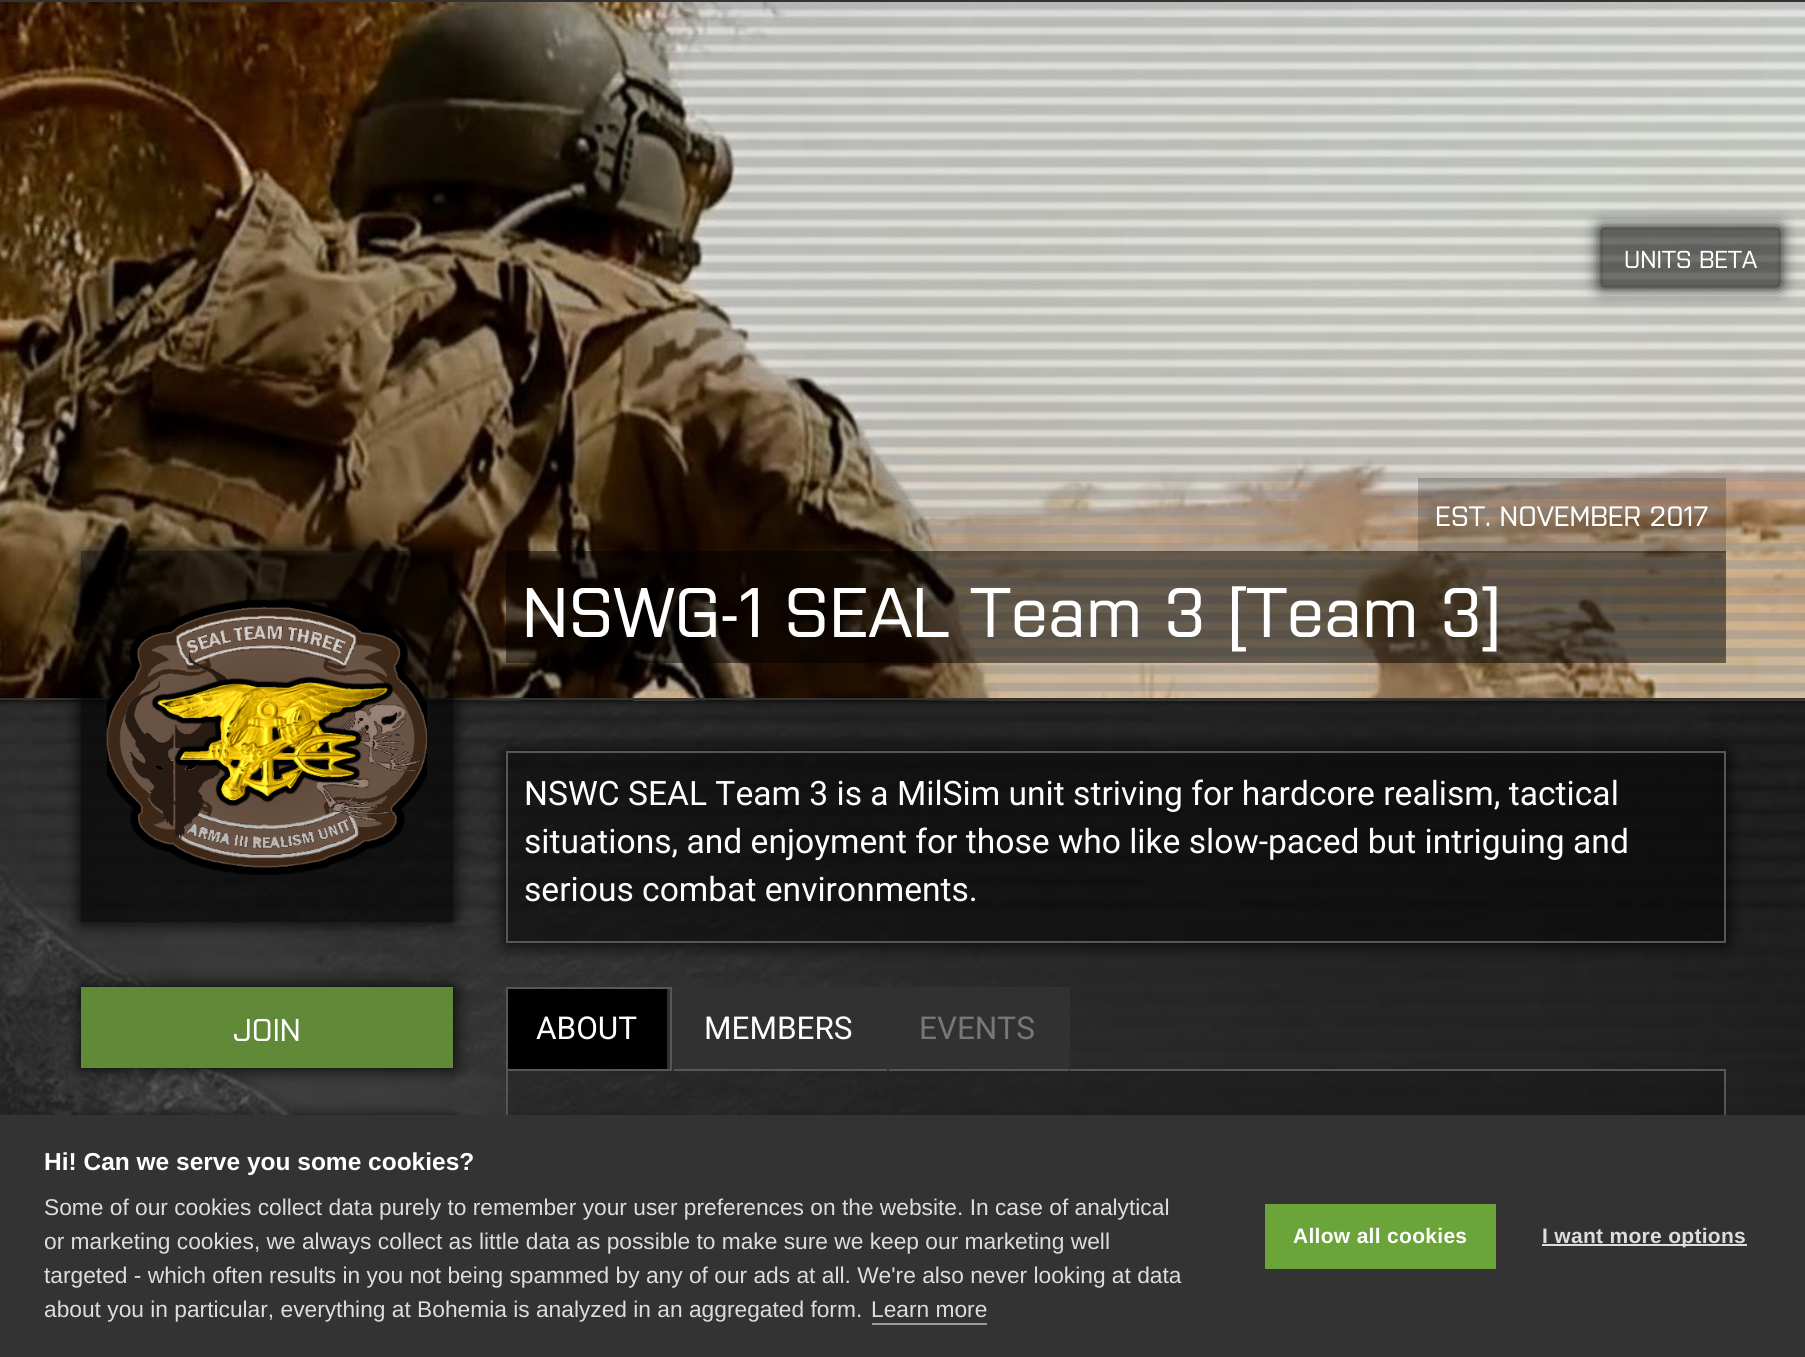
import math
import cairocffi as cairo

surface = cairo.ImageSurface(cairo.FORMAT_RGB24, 1805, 1357)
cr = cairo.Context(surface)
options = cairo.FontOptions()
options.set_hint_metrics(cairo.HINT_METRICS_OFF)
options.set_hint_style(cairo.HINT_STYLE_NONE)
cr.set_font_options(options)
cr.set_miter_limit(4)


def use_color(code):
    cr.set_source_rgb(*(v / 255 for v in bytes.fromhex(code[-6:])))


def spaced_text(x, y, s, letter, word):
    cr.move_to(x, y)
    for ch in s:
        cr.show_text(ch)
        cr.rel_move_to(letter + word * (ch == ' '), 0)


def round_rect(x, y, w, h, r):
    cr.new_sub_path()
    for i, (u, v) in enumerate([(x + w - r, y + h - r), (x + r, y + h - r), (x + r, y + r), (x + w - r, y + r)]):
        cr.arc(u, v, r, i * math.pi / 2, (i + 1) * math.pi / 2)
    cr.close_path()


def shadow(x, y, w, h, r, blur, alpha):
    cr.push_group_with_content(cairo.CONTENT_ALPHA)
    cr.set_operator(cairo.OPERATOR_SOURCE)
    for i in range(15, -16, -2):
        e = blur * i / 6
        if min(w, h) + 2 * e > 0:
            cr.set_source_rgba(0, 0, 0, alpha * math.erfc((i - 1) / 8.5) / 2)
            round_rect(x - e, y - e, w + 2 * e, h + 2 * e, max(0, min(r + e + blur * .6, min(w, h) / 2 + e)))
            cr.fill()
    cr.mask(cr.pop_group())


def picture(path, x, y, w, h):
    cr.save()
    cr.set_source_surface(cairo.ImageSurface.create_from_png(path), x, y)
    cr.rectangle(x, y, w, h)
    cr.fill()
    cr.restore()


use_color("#ffffff")
cr.paint()
picture("img1.png", 0, 700, 1805, 415)
use_color("#000000")
shadow(-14, 0, 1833, 700, 0, 4.5, 1)
picture("img2.png", 0, 2, 1805, 699)
cr.rectangle(-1, 1, 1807, 698)
use_color("#333333")
cr.stroke()
cr.save()
cr.set_fill_rule(cairo.FILL_RULE_EVEN_ODD)
cr.new_path()
cr.move_to(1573, 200)
cr.line_to(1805, 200)
cr.line_to(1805, 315)
cr.line_to(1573, 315)
cr.close_path()
cr.move_to(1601, 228)
cr.line_to(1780, 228)
cr.line_to(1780, 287)
cr.line_to(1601, 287)
cr.close_path()
cr.clip()
use_color("#000000")
shadow(1601, 228, 179, 59, 0, 9, 1)
cr.restore()
cr.set_source_rgba(0, 0, 0, 0.5)
cr.rectangle(1601, 228, 179, 59)
cr.fill()
cr.rectangle(1602, 229, 177, 57)
cr.set_source_rgba(0, 0, 0, 0.1)
cr.stroke()
cr.select_font_face("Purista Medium")
cr.set_font_size(24.5)
use_color("#ffffff")
cr.move_to(1624, 268)
cr.show_text("UNITS BETA")
cr.save()
cr.set_fill_rule(cairo.FILL_RULE_EVEN_ODD)
cr.new_path()
cr.move_to(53, 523)
cr.line_to(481, 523)
cr.line_to(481, 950)
cr.line_to(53, 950)
cr.close_path()
cr.move_to(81, 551)
cr.line_to(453, 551)
cr.line_to(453, 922)
cr.line_to(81, 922)
cr.close_path()
cr.clip()
use_color("#000000")
shadow(81, 551, 372, 371, 0, 9, 1)
cr.restore()
cr.set_source_rgba(0, 0, 0, 0.65)
cr.rectangle(81, 551, 372, 371)
cr.fill()
picture("img3.png", 106, 599, 321, 276)
cr.set_source_rgba(0, 0, 0, 0.5)
cr.rectangle(506, 551, 1220, 112)
cr.fill()
cr.set_source_rgba(0, 0, 0, 0.19)
cr.rectangle(1418, 478, 308, 75)
cr.fill()
cr.set_font_size(28)
use_color("#ffffff")
cr.move_to(1435, 526)
cr.show_text("EST. NOVEMBER 2017")
cr.set_font_size(70)
cr.move_to(522, 637)
cr.show_text("NSWG-1 SEAL Team 3")
cr.select_font_face("Liberation Sans")
cr.move_to(1227, 637)
cr.show_text("[")
cr.select_font_face("Purista Medium")
cr.move_to(1247, 637)
cr.show_text("Team 3")
cr.select_font_face("Liberation Sans")
cr.move_to(1482, 637)
cr.show_text("]")
cr.save()
cr.set_fill_rule(cairo.FILL_RULE_EVEN_ODD)
cr.new_path()
cr.move_to(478, 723)
cr.line_to(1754, 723)
cr.line_to(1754, 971)
cr.line_to(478, 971)
cr.close_path()
cr.move_to(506, 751)
cr.line_to(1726, 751)
cr.line_to(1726, 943)
cr.line_to(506, 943)
cr.close_path()
cr.clip()
use_color("#000000")
shadow(506, 751, 1220, 192, 0, 9, 1)
cr.restore()
cr.set_source_rgba(0, 0, 0, 0.5)
cr.rectangle(507, 752, 1218, 190)
cr.fill_preserve()
use_color("#575757")
cr.stroke()
cr.select_font_face("Roboto")
cr.set_font_size(33.6)
use_color("#ffffff")
cr.move_to(524, 805)
cr.show_text("NSWC SEAL Team 3 is a MilSim unit striving for hardcore realism, tactical")
cr.move_to(524, 853)
cr.show_text("situations, and enjoyment for those who like slow-paced but intriguing and")
cr.move_to(524, 901)
cr.show_text("serious combat environments.")
use_color("#000000")
shadow(81, 987, 372, 81, 0, 9, 1)
use_color("#608938")
cr.rectangle(81, 987, 372, 81)
cr.fill()
cr.select_font_face("Purista Medium")
cr.set_font_size(31.5)
use_color("#ffffff")
cr.move_to(233, 1041)
cr.show_text("JOIN")
use_color("#000000")
shadow(81, 1120, 372, 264, 0, 9, 1)
use_color("#313131")
cr.rectangle(667, 989, 3, 80)
cr.fill()
cr.set_source_rgba(0, 0, 0, 0.21)
cr.rectangle(508, 1071, 1216, 44)
cr.fill()
cr.rectangle(507, 1070, 1218, 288)
use_color("#575757")
cr.stroke()
cr.rectangle(507, 988, 164, 82)
cr.stroke()
use_color("#000000")
cr.rectangle(508, 989, 159, 80)
cr.fill()
cr.select_font_face("Roboto")
use_color("#ffffff")
cr.move_to(536, 1039)
cr.show_text("ABOUT")
use_color("#313131")
cr.rectangle(674, 987, 212, 82)
cr.fill()
cr.rectangle(886, 987, 3, 84)
cr.fill()
use_color("#575757")
cr.rectangle(886, 1069, 1, 2)
cr.fill()
use_color("#313131")
cr.rectangle(672, 998, 2, 73)
cr.fill()
use_color("#ffffff")
cr.move_to(704, 1039)
cr.show_text("MEMBERS")
use_color("#313131")
cr.rectangle(889, 987, 179, 82)
cr.fill()
cr.rectangle(1068, 987, 2, 84)
cr.fill()
use_color("#575757")
cr.rectangle(1068, 1069, 1, 2)
cr.fill()
use_color("#777777")
cr.move_to(919, 1039)
cr.show_text("EVENTS")
use_color("#000000")
shadow(0, 1115, 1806, 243, 0, 17.5, 0.1)
use_color("#333333")
cr.rectangle(0, 1115, 1805, 242)
cr.fill()
cr.select_font_face("Liberation Sans", cairo.FONT_SLANT_NORMAL, cairo.FONT_WEIGHT_BOLD)
cr.set_font_size(24.5)
use_color("#ffffff")
cr.move_to(44, 1170)
cr.show_text("Hi! Can we serve you some cookies?")
cr.select_font_face("Liberation Sans")
cr.set_font_size(22.75)
use_color("#dddddd")
cr.move_to(44, 1215)
cr.show_text("Some of our cookies collect data purely to remember your user preferences on the website. In case of analytical")
cr.move_to(44, 1249)
cr.show_text("or marketing cookies, we always collect as little data as possible to make sure we keep our marketing well")
cr.move_to(44, 1283)
cr.show_text("targeted - which often results in you not being spammed by any of our ads at all. We're also never looking at data")
cr.move_to(44, 1317)
cr.show_text("about you in particular, everything at Bohemia is analyzed in an aggregated form.")
cr.move_to(871, 1317)
cr.show_text("Learn more")
use_color("#999999")
cr.rectangle(872, 1323, 115, 2)
cr.fill()
use_color("#6ba539")
cr.rectangle(1265, 1204, 231, 65)
cr.fill()
cr.select_font_face("Liberation Sans", cairo.FONT_SLANT_NORMAL, cairo.FONT_WEIGHT_BOLD)
cr.set_font_size(21)
use_color("#ffffff")
spaced_text(1293, 1243, "Allow all cookies", 0.3, 0)
use_color("#dddddd")
cr.rectangle(1542, 1244, 205, 2)
cr.fill()
spaced_text(1542, 1243, "I want more options", 0.3, 0)
surface.write_to_png("result.png")
